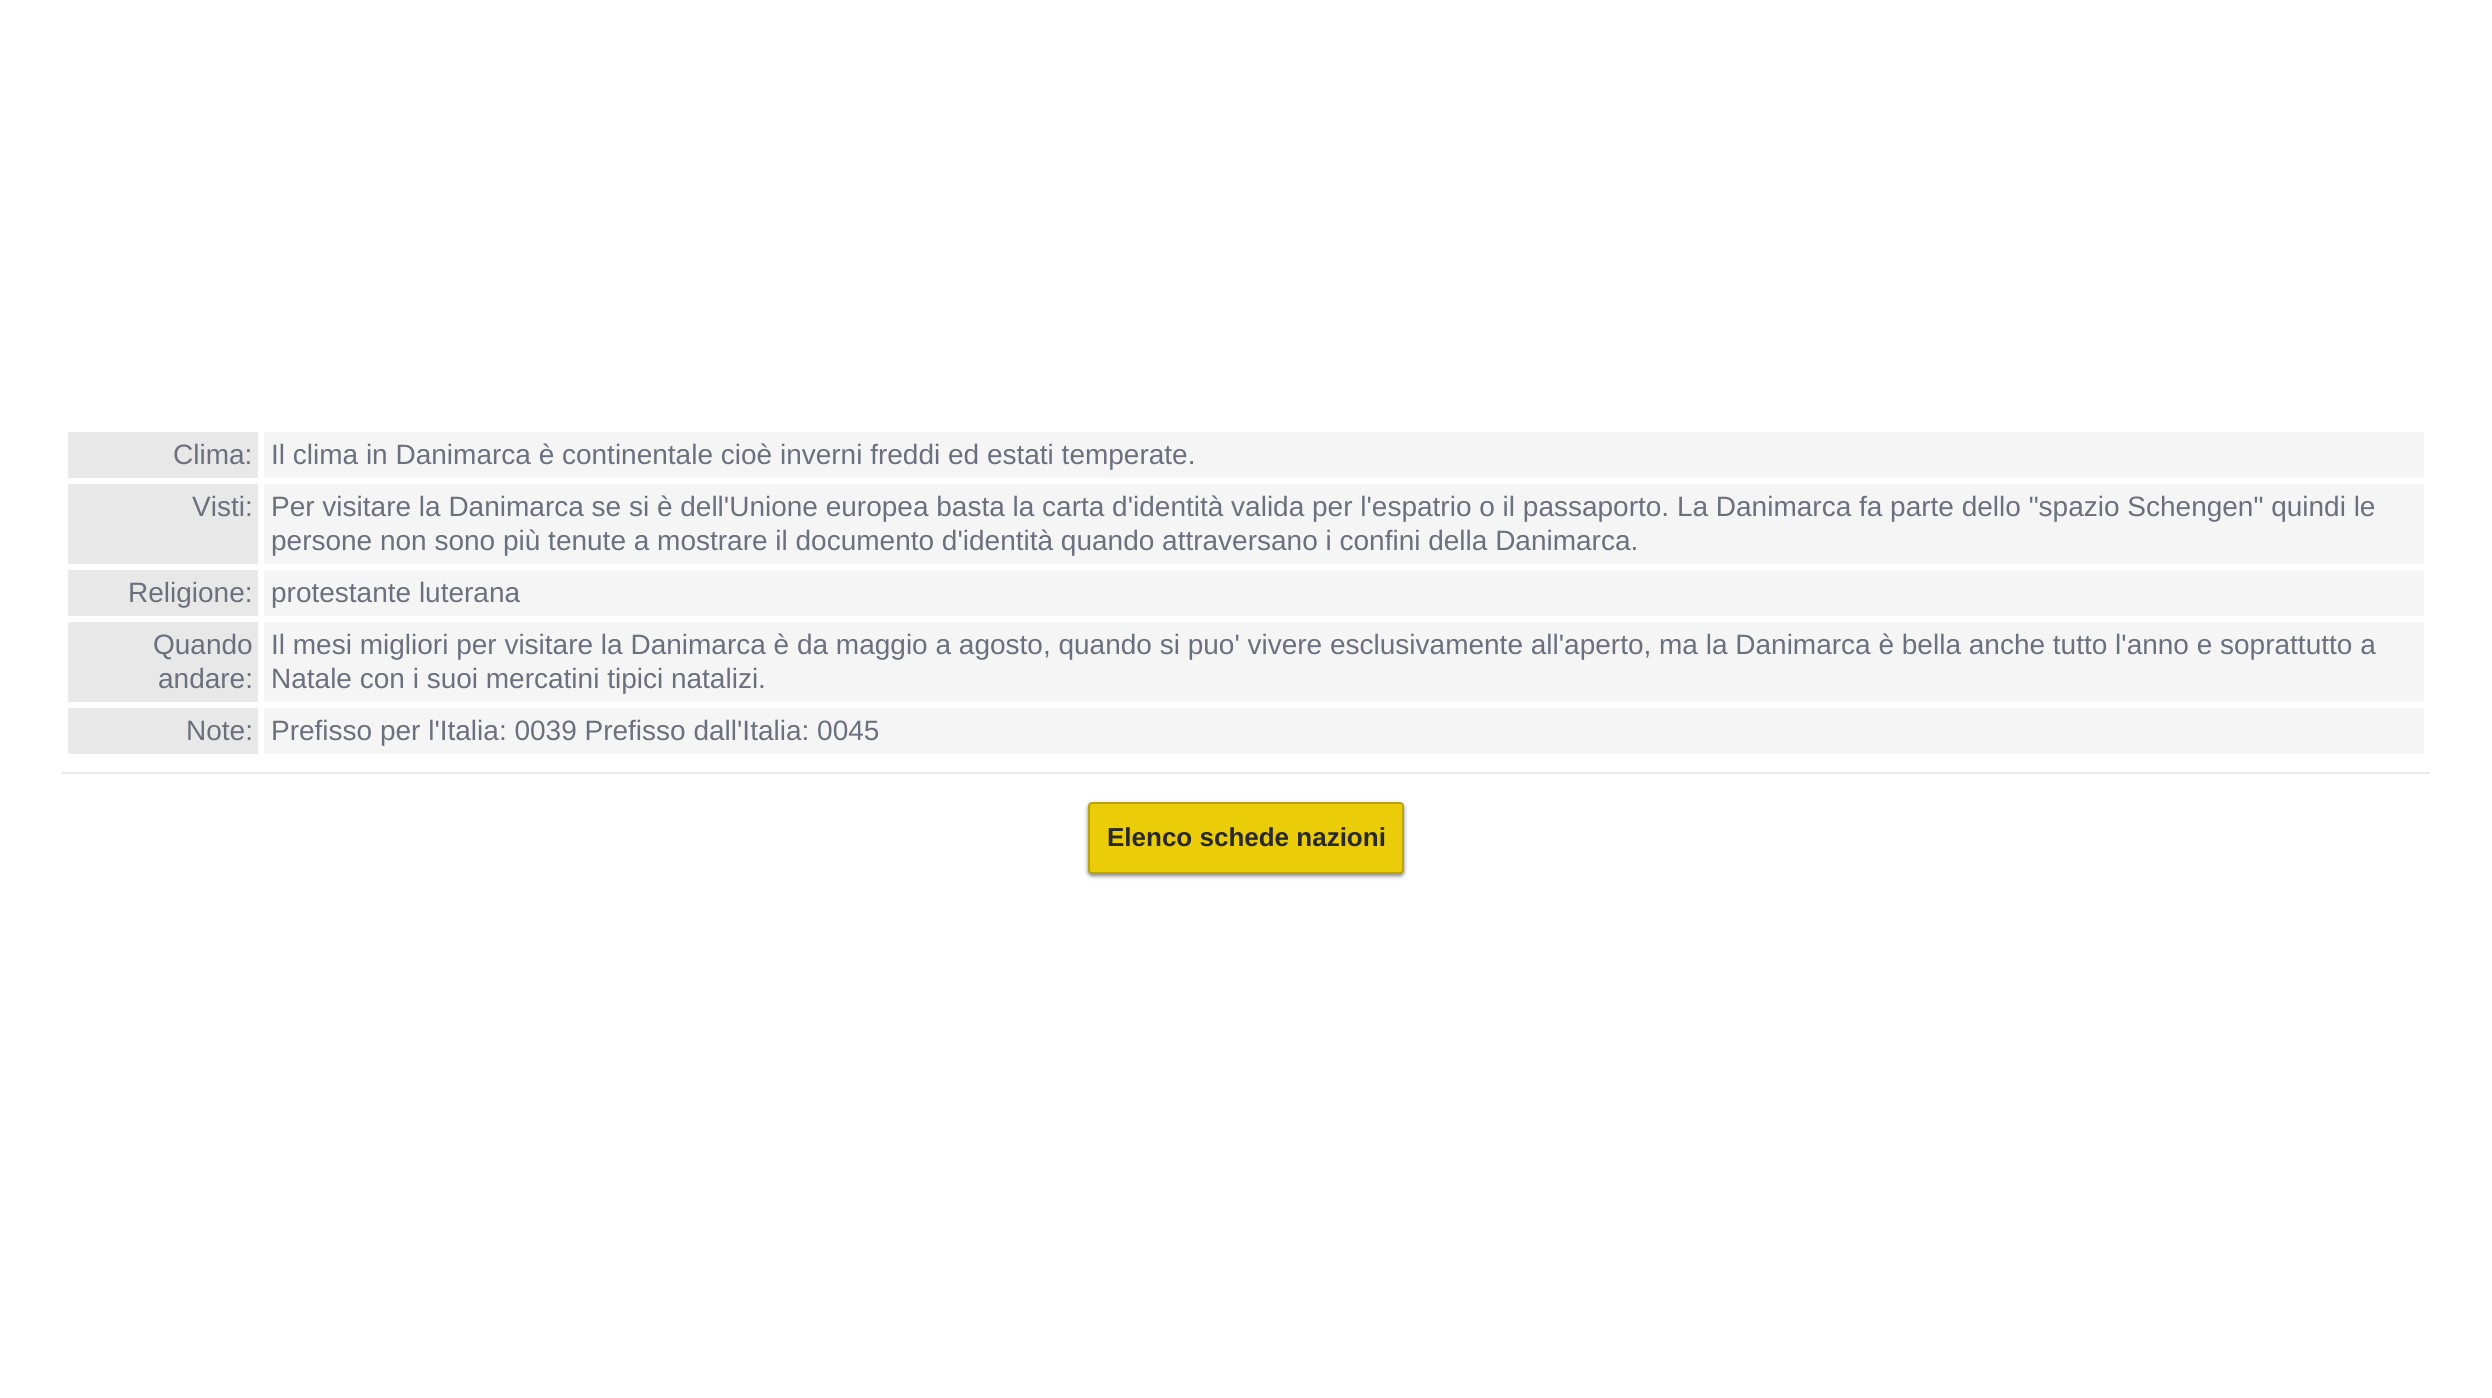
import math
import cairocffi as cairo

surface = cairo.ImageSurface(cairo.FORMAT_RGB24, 2492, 1398)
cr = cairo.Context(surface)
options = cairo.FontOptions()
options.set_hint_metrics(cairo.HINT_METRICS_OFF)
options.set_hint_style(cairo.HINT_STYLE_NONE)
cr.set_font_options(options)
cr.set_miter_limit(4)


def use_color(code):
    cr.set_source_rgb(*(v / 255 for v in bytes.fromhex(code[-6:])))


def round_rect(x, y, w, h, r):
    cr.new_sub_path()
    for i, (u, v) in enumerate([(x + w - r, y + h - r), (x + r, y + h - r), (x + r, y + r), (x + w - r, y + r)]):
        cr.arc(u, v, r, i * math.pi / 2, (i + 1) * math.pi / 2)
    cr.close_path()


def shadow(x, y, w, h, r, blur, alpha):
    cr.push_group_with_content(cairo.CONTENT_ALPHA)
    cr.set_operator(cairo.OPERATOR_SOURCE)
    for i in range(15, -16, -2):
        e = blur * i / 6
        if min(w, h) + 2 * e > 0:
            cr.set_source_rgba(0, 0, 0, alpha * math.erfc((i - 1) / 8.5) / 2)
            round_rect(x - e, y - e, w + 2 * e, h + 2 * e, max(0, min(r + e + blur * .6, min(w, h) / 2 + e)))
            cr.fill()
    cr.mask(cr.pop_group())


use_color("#ffffff")
cr.paint()
use_color("#eaeaea")
cr.rectangle(62, 772, 2368, 2)
cr.fill()
use_color("#e9e8e8")
cr.rectangle(68, 432, 190, 46)
cr.fill()
cr.select_font_face("Liberation Sans")
cr.set_font_size(28)
use_color("#6c707e")
cr.move_to(173, 464)
cr.show_text("Clima:")
use_color("#f5f5f5")
cr.rectangle(264, 432, 2160, 46)
cr.fill()
use_color("#6c707e")
cr.move_to(271, 464)
cr.show_text("Il clima in Danimarca è continentale cioè inverni freddi ed estati temperate.")
use_color("#e9e8e8")
cr.rectangle(68, 484, 190, 80)
cr.fill()
use_color("#6c707e")
cr.move_to(192, 516)
cr.show_text("Visti:")
use_color("#f5f5f5")
cr.rectangle(264, 484, 2160, 80)
cr.fill()
use_color("#6c707e")
cr.move_to(271, 516)
cr.show_text("Per visitare la Danimarca se si è dell'Unione europea basta la carta d'identità valida per l'espatrio o il passaporto. La Danimarca fa parte dello \"spazio Schengen\" quindi le")
cr.move_to(271, 550)
cr.show_text("persone non sono più tenute a mostrare il documento d'identità quando attraversano i confini della Danimarca.")
use_color("#e9e8e8")
cr.rectangle(68, 570, 190, 46)
cr.fill()
use_color("#6c707e")
cr.move_to(128, 602)
cr.show_text("Religione:")
use_color("#f5f5f5")
cr.rectangle(264, 570, 2160, 46)
cr.fill()
use_color("#6c707e")
cr.move_to(271, 602)
cr.show_text("protestante luterana")
use_color("#e9e8e8")
cr.rectangle(68, 622, 190, 80)
cr.fill()
use_color("#6c707e")
cr.move_to(153, 654)
cr.show_text("Quando")
cr.move_to(158, 688)
cr.show_text("andare:")
use_color("#f5f5f5")
cr.rectangle(264, 622, 2160, 80)
cr.fill()
use_color("#6c707e")
cr.move_to(271, 654)
cr.show_text("Il mesi migliori per visitare la Danimarca è da maggio a agosto, quando si puo' vivere esclusivamente all'aperto, ma la Danimarca è bella anche tutto l'anno e soprattutto a")
cr.move_to(271, 688)
cr.show_text("Natale con i suoi mercatini tipici natalizi.")
use_color("#e9e8e8")
cr.rectangle(68, 708, 190, 46)
cr.fill()
use_color("#6c707e")
cr.move_to(186, 740)
cr.show_text("Note:")
use_color("#f5f5f5")
cr.rectangle(264, 708, 2160, 46)
cr.fill()
use_color("#6c707e")
cr.move_to(271, 740)
cr.show_text("Prefisso per l'Italia: 0039 Prefisso dall'Italia: 0045")
use_color("#000000")
shadow(1088, 804, 316, 72, 4, 2, 0.5)
use_color("#eacc09")
round_rect(1089, 803, 314, 70, 3)
cr.fill_preserve()
use_color("#baa30b")
cr.stroke()
cr.select_font_face("Liberation Sans", cairo.FONT_SLANT_NORMAL, cairo.FONT_WEIGHT_BOLD)
cr.set_font_size(26)
use_color("#282824")
cr.move_to(1107, 846)
cr.show_text("Elenco schede nazioni")
surface.write_to_png("result.png")
